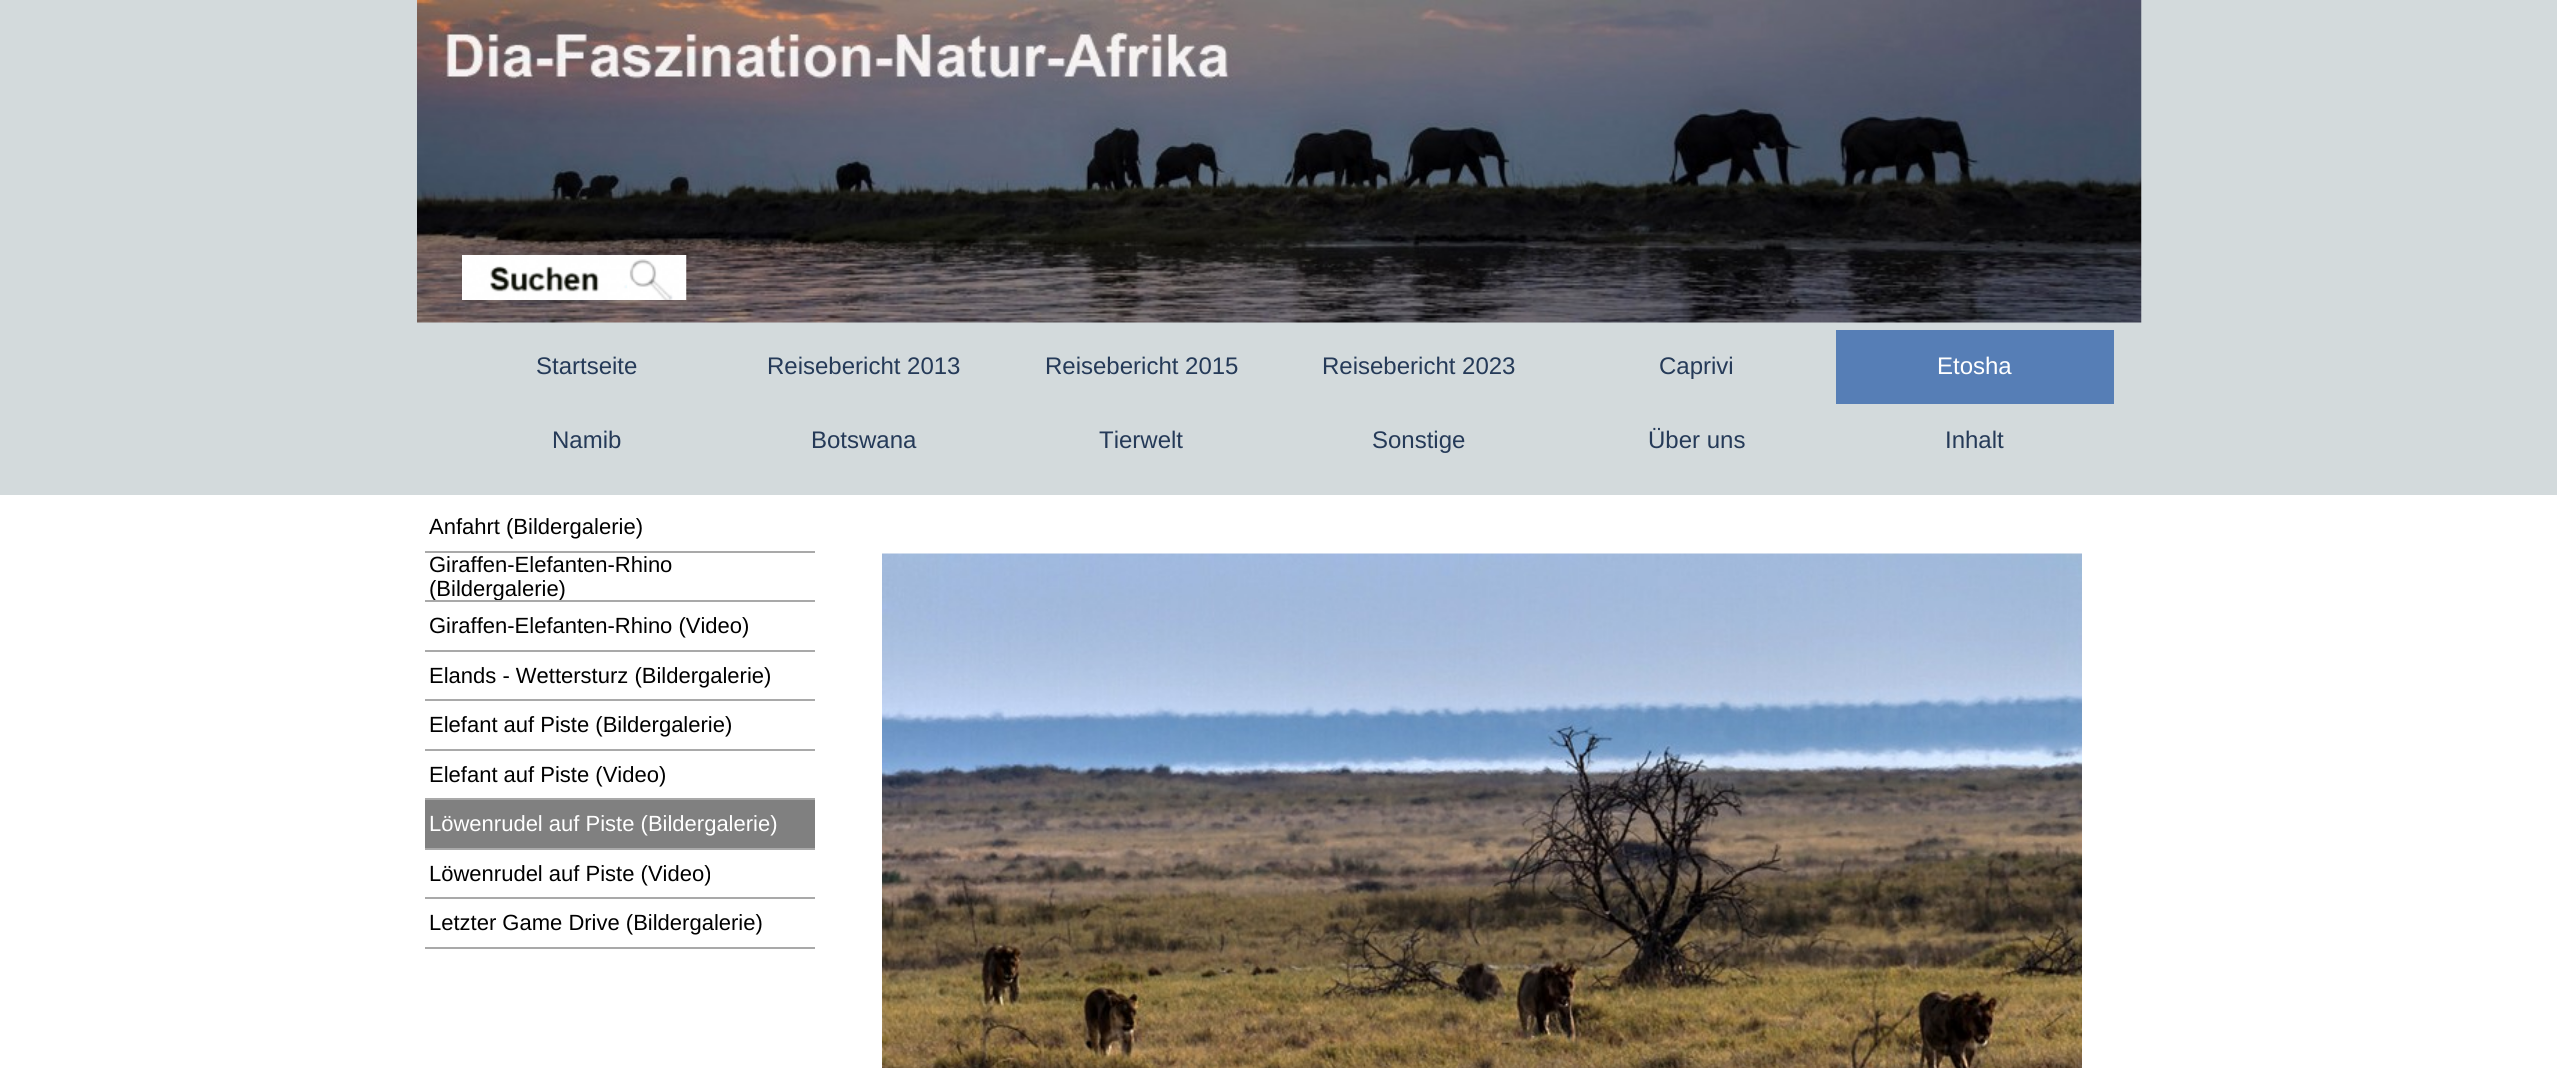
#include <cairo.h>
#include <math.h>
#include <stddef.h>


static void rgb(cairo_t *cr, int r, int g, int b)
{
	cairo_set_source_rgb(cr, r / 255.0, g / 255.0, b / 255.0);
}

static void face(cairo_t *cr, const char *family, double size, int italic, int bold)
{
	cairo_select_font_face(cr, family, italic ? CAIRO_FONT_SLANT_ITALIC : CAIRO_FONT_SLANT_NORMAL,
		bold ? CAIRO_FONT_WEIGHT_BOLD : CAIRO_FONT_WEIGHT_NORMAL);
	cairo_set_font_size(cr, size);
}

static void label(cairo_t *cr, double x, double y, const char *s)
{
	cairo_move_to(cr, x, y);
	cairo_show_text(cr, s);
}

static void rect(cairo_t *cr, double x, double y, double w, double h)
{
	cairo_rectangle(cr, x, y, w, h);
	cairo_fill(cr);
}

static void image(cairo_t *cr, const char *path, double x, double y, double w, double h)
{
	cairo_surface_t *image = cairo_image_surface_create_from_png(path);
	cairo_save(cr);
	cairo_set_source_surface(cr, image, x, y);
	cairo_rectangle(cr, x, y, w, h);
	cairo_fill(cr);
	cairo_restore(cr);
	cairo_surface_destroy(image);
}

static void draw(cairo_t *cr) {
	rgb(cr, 255, 255, 255);
	cairo_paint(cr);
	rgb(cr, 211, 218, 220);
	rect(cr, 0, 0, 2557, 495);
	image(cr, "image0.png", 417, 0, 1725, 323);
	image(cr, "image1.png", 462, 255, 225, 45);
	face(cr, "Liberation Sans", 24, 0, 0);
	rgb(cr, 37, 58, 88);
	label(cr, 536, 374, "Startseite");
	label(cr, 767, 374, "Reisebericht 2013");
	label(cr, 1045, 374, "Reisebericht 2015");
	label(cr, 1322, 374, "Reisebericht 2023");
	label(cr, 1659, 374, "Caprivi");
	rgb(cr, 86, 126, 182);
	rect(cr, 1836, 330, 278, 74);
	rgb(cr, 255, 255, 255);
	label(cr, 1937, 374, "Etosha");
	rgb(cr, 37, 58, 88);
	label(cr, 552, 448, "Namib");
	label(cr, 811, 448, "Botswana");
	label(cr, 1099, 448, "Tierwelt");
	label(cr, 1372, 448, "Sonstige");
	label(cr, 1648, 448, "Über uns");
	label(cr, 1945, 448, "Inhalt");
	rgb(cr, 169, 169, 169);
	rect(cr, 425, 551, 390, 2);
	face(cr, "Liberation Sans", 22, 0, 0);
	rgb(cr, 0, 0, 0);
	label(cr, 429, 534, "Anfahrt (Bildergalerie)");
	rgb(cr, 169, 169, 169);
	rect(cr, 425, 600, 390, 2);
	rgb(cr, 0, 0, 0);
	label(cr, 429, 572, "Giraffen-Elefanten-Rhino");
	cairo_save(cr);
	cairo_rectangle(cr, 425, 552, 390, 48);
	cairo_clip(cr);
	label(cr, 429, 596, "(Bildergalerie)");
	cairo_restore(cr);
	rgb(cr, 169, 169, 169);
	rect(cr, 425, 650, 390, 2);
	rgb(cr, 0, 0, 0);
	label(cr, 429, 633, "Giraffen-Elefanten-Rhino (Video)");
	rgb(cr, 169, 169, 169);
	rect(cr, 425, 699, 390, 2);
	rgb(cr, 0, 0, 0);
	label(cr, 429, 683, "Elands - Wettersturz (Bildergalerie)");
	rgb(cr, 169, 169, 169);
	rect(cr, 425, 749, 390, 2);
	rgb(cr, 0, 0, 0);
	label(cr, 429, 732, "Elefant auf Piste (Bildergalerie)");
	rgb(cr, 169, 169, 169);
	rect(cr, 425, 798, 390, 2);
	rgb(cr, 0, 0, 0);
	label(cr, 429, 782, "Elefant auf Piste (Video)");
	rgb(cr, 128, 128, 128);
	rect(cr, 425, 800, 390, 48);
	rgb(cr, 169, 169, 169);
	rect(cr, 425, 848, 390, 2);
	rgb(cr, 255, 255, 255);
	label(cr, 429, 831, "Löwenrudel auf Piste (Bildergalerie)");
	rgb(cr, 169, 169, 169);
	rect(cr, 425, 897, 390, 2);
	rgb(cr, 0, 0, 0);
	label(cr, 429, 881, "Löwenrudel auf Piste (Video)");
	rgb(cr, 169, 169, 169);
	rect(cr, 425, 947, 390, 2);
	rgb(cr, 0, 0, 0);
	label(cr, 429, 930, "Letzter Game Drive (Bildergalerie)");
	image(cr, "image2.png", 882, 553, 1200, 515);
}

int main(void) {
	cairo_surface_t *surface = cairo_image_surface_create(CAIRO_FORMAT_RGB24, 2557, 1068);
	cairo_t *cr = cairo_create(surface);
	cairo_font_options_t *options = cairo_font_options_create();
	cairo_font_options_set_hint_metrics(options, CAIRO_HINT_METRICS_OFF);
	cairo_font_options_set_hint_style(options, CAIRO_HINT_STYLE_NONE);
	cairo_set_font_options(cr, options);
	cairo_set_miter_limit(cr, 4);
	draw(cr);
	cairo_surface_write_to_png(surface, "render.png");
	cairo_font_options_destroy(options);
	cairo_destroy(cr);
	cairo_surface_destroy(surface);
	return 0;
}
